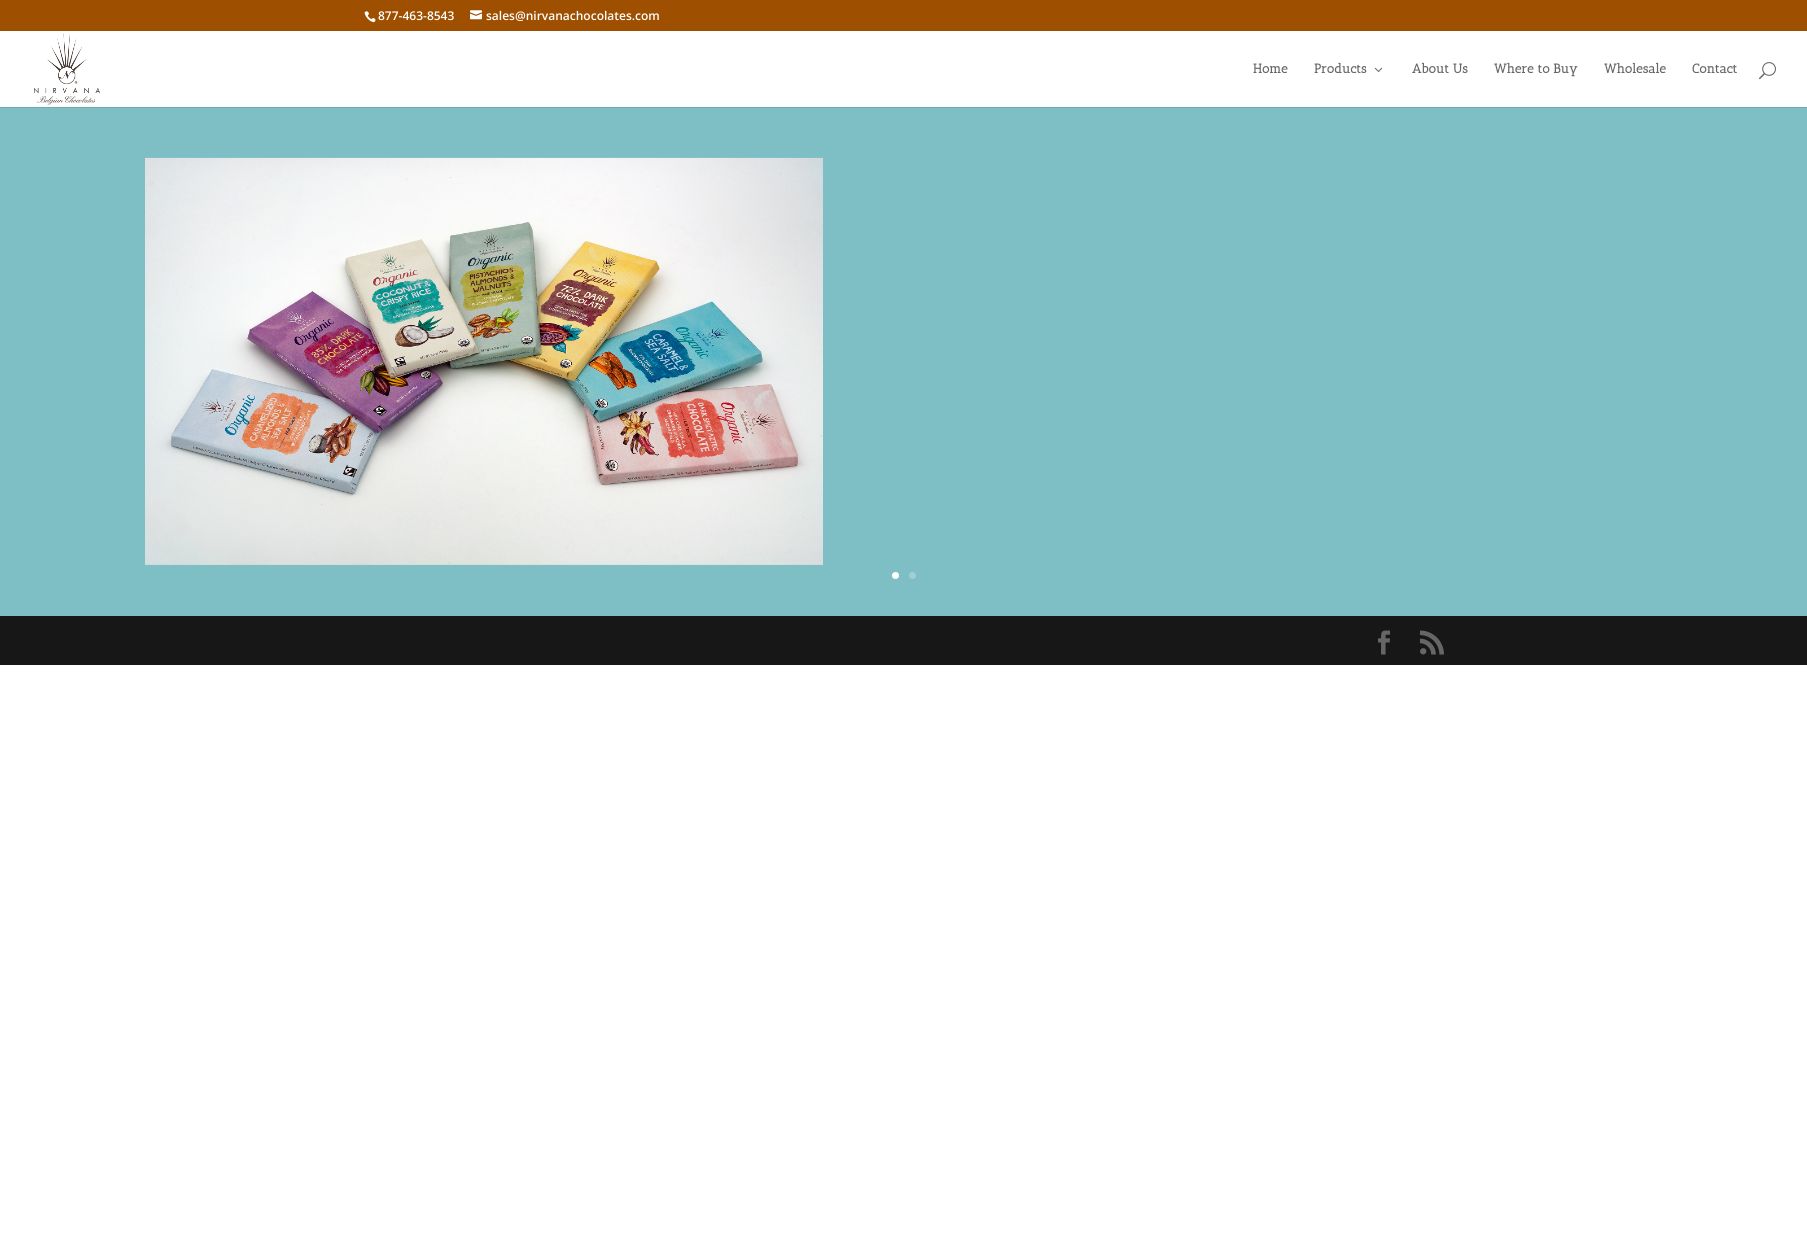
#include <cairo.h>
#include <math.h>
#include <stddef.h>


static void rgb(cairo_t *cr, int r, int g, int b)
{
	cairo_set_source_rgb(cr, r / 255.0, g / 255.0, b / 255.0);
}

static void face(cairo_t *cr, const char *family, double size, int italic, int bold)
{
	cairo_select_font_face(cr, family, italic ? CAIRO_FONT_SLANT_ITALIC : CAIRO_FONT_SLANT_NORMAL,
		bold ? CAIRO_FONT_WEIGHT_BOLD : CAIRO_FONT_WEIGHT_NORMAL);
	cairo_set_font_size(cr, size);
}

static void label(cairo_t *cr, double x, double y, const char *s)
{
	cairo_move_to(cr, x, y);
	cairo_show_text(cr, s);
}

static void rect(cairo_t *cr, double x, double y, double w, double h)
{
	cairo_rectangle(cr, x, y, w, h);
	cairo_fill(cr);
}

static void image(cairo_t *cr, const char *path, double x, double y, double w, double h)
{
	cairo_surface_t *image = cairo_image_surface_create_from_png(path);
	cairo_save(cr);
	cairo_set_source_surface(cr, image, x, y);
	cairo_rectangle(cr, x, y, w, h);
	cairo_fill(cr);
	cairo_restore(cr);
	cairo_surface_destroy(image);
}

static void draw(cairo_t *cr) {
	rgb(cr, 255, 255, 255);
	cairo_paint(cr);
	rgb(cr, 158, 79, 0);
	rect(cr, 0, 0, 1807, 31);
	image(cr, "image0.png", 364, 11, 12, 12);
	face(cr, "Open Sans SemiBold", 12, 0, 0);
	rgb(cr, 255, 255, 255);
	label(cr, 378, 20, "877-463-8543");
	image(cr, "image1.png", 470, 10, 12, 10);
	label(cr, 486, 20, "sales@nirvanachocolates.com");
	rgb(cr, 113, 171, 177);
	rect(cr, 0, 107, 1807, 1);
	image(cr, "image2.png", 34, 33, 66, 72);
	face(cr, "Antic Slab", 13, 0, 1);
	rgb(cr, 102, 102, 102);
	label(cr, 1253, 73, "Home");
	label(cr, 1314, 73, "Products");
	image(cr, "image3.png", 1374, 67, 9, 5);
	label(cr, 1412, 73, "About Us");
	label(cr, 1494, 73, "Where to Buy");
	label(cr, 1604, 73, "Wholesale");
	label(cr, 1692, 73, "Contact");
	image(cr, "image4.png", 1759, 62, 17, 18);
	rgb(cr, 126, 190, 197);
	rect(cr, 0, 108, 1807, 508);
	image(cr, "image5.png", 145, 157, 678, 408);
	rgb(cr, 255, 255, 255);
	cairo_arc(cr, 895.5, 575.5, 3.5, 0, 2 * M_PI);
	cairo_fill(cr);
	rgb(cr, 159, 207, 212);
	cairo_arc(cr, 912.5, 575.5, 3.5, 0, 2 * M_PI);
	cairo_fill(cr);
	rgb(cr, 23, 23, 23);
	rect(cr, 0, 616, 1807, 49);
	image(cr, "image6.png", 1378, 630, 12, 25);
	image(cr, "image7.png", 1420, 630, 24, 25);
}

int main(void) {
	cairo_surface_t *surface = cairo_image_surface_create(CAIRO_FORMAT_RGB24, 1807, 1239);
	cairo_t *cr = cairo_create(surface);
	cairo_font_options_t *options = cairo_font_options_create();
	cairo_font_options_set_hint_metrics(options, CAIRO_HINT_METRICS_OFF);
	cairo_font_options_set_hint_style(options, CAIRO_HINT_STYLE_NONE);
	cairo_set_font_options(cr, options);
	cairo_set_miter_limit(cr, 4);
	draw(cr);
	cairo_surface_write_to_png(surface, "render.png");
	cairo_font_options_destroy(options);
	cairo_destroy(cr);
	cairo_surface_destroy(surface);
	return 0;
}
